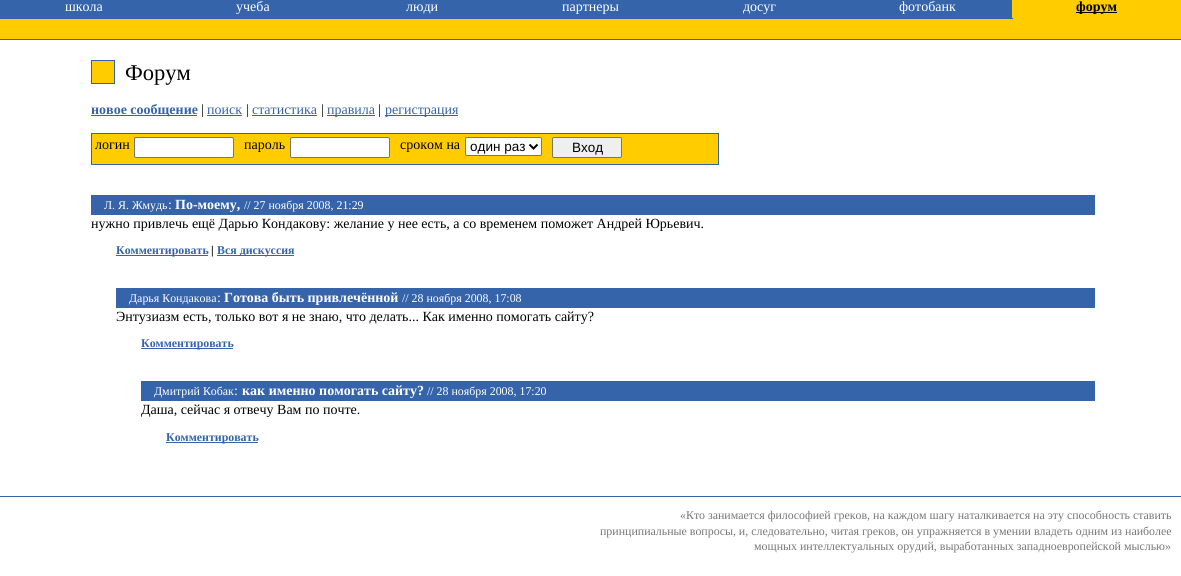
#include <cairo.h>
#include <math.h>
#include <stddef.h>


static void rgb(cairo_t *cr, int r, int g, int b)
{
	cairo_set_source_rgb(cr, r / 255.0, g / 255.0, b / 255.0);
}

static void face(cairo_t *cr, const char *family, double size, int italic, int bold)
{
	cairo_select_font_face(cr, family, italic ? CAIRO_FONT_SLANT_ITALIC : CAIRO_FONT_SLANT_NORMAL,
		bold ? CAIRO_FONT_WEIGHT_BOLD : CAIRO_FONT_WEIGHT_NORMAL);
	cairo_set_font_size(cr, size);
}

static void label(cairo_t *cr, double x, double y, const char *s)
{
	cairo_move_to(cr, x, y);
	cairo_show_text(cr, s);
}

static void rect(cairo_t *cr, double x, double y, double w, double h)
{
	cairo_rectangle(cr, x, y, w, h);
	cairo_fill(cr);
}

static void rrect(cairo_t *cr, double x, double y, double w, double h, double r)
{
	cairo_new_sub_path(cr);
	cairo_arc(cr, x + w - r, y + h - r, r, 0, M_PI / 2);
	cairo_arc(cr, x + r, y + h - r, r, M_PI / 2, M_PI);
	cairo_arc(cr, x + r, y + r, r, M_PI, 1.5 * M_PI);
	cairo_arc(cr, x + w - r, y + r, r, 1.5 * M_PI, 2 * M_PI);
	cairo_close_path(cr);
}

static void draw(cairo_t *cr) {
	rgb(cr, 255, 255, 255);
	cairo_paint(cr);
	rgb(cr, 53, 100, 170);
	rect(cr, 0, 39, 1181, 1);
	rect(cr, 0, 0, 844, 19);
	face(cr, "Liberation Serif", 14, 0, 0);
	rgb(cr, 255, 255, 255);
	label(cr, 65, 11, "школа");
	label(cr, 236, 11, "учеба");
	label(cr, 406, 11, "люди");
	label(cr, 562, 11, "партнеры");
	label(cr, 743, 11, "досуг");
	rgb(cr, 53, 100, 170);
	rect(cr, 844, 0, 168, 18);
	rgb(cr, 255, 204, 0);
	rect(cr, 1012, 0, 169, 19);
	rgb(cr, 53, 100, 170);
	rect(cr, 843, 18, 170, 1);
	rgb(cr, 255, 255, 255);
	label(cr, 899, 11, "фотобанк");
	rgb(cr, 0, 0, 0);
	rect(cr, 1076, 12, 41, 1);
	face(cr, "Liberation Serif", 14, 0, 1);
	label(cr, 1076, 11, "форум");
	rgb(cr, 255, 204, 0);
	rect(cr, 0, 19, 1181, 20);
	cairo_rectangle(cr, 91.5, 60.5, 23, 23);
	cairo_fill_preserve(cr);
	rgb(cr, 53, 100, 170);
	cairo_set_line_width(cr, 1);
	cairo_stroke(cr);
	face(cr, "Liberation Serif", 22.5, 0, 0);
	rgb(cr, 0, 0, 0);
	label(cr, 125, 80, "Форум");
	rgb(cr, 53, 100, 170);
	rect(cr, 91, 115, 106, 1);
	face(cr, "Liberation Serif", 14, 0, 1);
	label(cr, 91, 114, "новое сообщение");
	face(cr, "Liberation Serif", 14, 0, 0);
	rgb(cr, 0, 0, 0);
	label(cr, 201, 114, "|");
	rgb(cr, 53, 100, 170);
	label(cr, 207, 114, "поиск");
	rect(cr, 207, 115, 35, 1);
	rgb(cr, 0, 0, 0);
	label(cr, 246, 114, "|");
	rgb(cr, 53, 100, 170);
	label(cr, 252, 114, "статистика");
	rect(cr, 252, 115, 65, 1);
	rgb(cr, 0, 0, 0);
	label(cr, 321, 114, "|");
	rgb(cr, 53, 100, 170);
	rect(cr, 327, 115, 48, 1);
	label(cr, 327, 114, "правила");
	rgb(cr, 0, 0, 0);
	label(cr, 378, 114, "|");
	rgb(cr, 53, 100, 170);
	rect(cr, 385, 115, 73, 1);
	label(cr, 385, 114, "регистрация");
	rgb(cr, 255, 204, 0);
	cairo_rectangle(cr, 91.5, 133.5, 627, 31);
	cairo_fill_preserve(cr);
	rgb(cr, 53, 100, 170);
	cairo_stroke(cr);
	rgb(cr, 0, 0, 0);
	label(cr, 95, 149, "логин");
	rgb(cr, 255, 255, 255);
	rrect(cr, 134.5, 137.5, 99, 20, 1.5);
	cairo_fill_preserve(cr);
	rgb(cr, 118, 118, 118);
	cairo_stroke(cr);
	rgb(cr, 0, 0, 0);
	label(cr, 244, 149, "пароль");
	rgb(cr, 255, 255, 255);
	rrect(cr, 290.5, 137.5, 99, 20, 1.5);
	cairo_fill_preserve(cr);
	rgb(cr, 118, 118, 118);
	cairo_stroke(cr);
	rgb(cr, 0, 0, 0);
	label(cr, 400, 149, "сроком на");
	rgb(cr, 255, 255, 255);
	rrect(cr, 465.5, 137.5, 76, 18, 1.5);
	cairo_fill_preserve(cr);
	rgb(cr, 118, 118, 118);
	cairo_stroke(cr);
	cairo_new_path(cr);
	cairo_move_to(cr, 529.5, 144.5);
	cairo_line_to(cr, 533.5, 148.5);
	cairo_line_to(cr, 537.5, 144.5);
	rgb(cr, 0, 0, 0);
	cairo_set_line_width(cr, 2);
	cairo_stroke(cr);
	face(cr, "Liberation Sans", 13.5, 0, 0);
	label(cr, 470, 151, "один раз");
	rgb(cr, 239, 239, 239);
	rrect(cr, 552.5, 137.5, 69, 20, 1.5);
	cairo_fill_preserve(cr);
	rgb(cr, 118, 118, 118);
	cairo_set_line_width(cr, 1);
	cairo_stroke(cr);
	rgb(cr, 0, 0, 0);
	label(cr, 572, 152, "Вход");
	rgb(cr, 53, 100, 170);
	rect(cr, 91, 195, 1004, 20);
	face(cr, "Liberation Serif", 11.9, 0, 0);
	rgb(cr, 255, 255, 255);
	label(cr, 104, 209, "Л. Я. Жмудь");
	face(cr, "Liberation Serif", 14, 0, 0);
	label(cr, 168, 209, ":");
	face(cr, "Liberation Serif", 14, 0, 1);
	label(cr, 175, 209, "По-моему,");
	face(cr, "Liberation Serif", 11.9, 0, 0);
	label(cr, 244, 209, "// 27 ноября 2008, 21:29");
	face(cr, "Liberation Serif", 14, 0, 0);
	rgb(cr, 0, 0, 0);
	label(cr, 91, 228, "нужно привлечь ещё Дарью Кондакову: желание у нее есть, а со временем поможет Андрей Юрьевич.");
	rgb(cr, 53, 100, 170);
	rect(cr, 116, 255, 92, 1);
	face(cr, "Liberation Serif", 11.9, 0, 1);
	label(cr, 116, 254, "Комментировать");
	rgb(cr, 0, 0, 0);
	label(cr, 211, 254, "|");
	rgb(cr, 53, 100, 170);
	rect(cr, 217, 255, 77, 1);
	label(cr, 217, 254, "Вся дискуссия");
	rect(cr, 116, 288, 979, 20);
	face(cr, "Liberation Serif", 11.9, 0, 0);
	rgb(cr, 255, 255, 255);
	label(cr, 129, 302, "Дарья Кондакова");
	face(cr, "Liberation Serif", 14, 0, 0);
	label(cr, 217, 302, ":");
	face(cr, "Liberation Serif", 14, 0, 1);
	label(cr, 224, 302, "Готова быть привлечённой");
	face(cr, "Liberation Serif", 11.9, 0, 0);
	label(cr, 402, 302, "// 28 ноября 2008, 17:08");
	face(cr, "Liberation Serif", 14, 0, 0);
	rgb(cr, 0, 0, 0);
	label(cr, 116, 321, "Энтузиазм есть, только вот я не знаю, что делать... Как именно помогать сайту?");
	rgb(cr, 53, 100, 170);
	rect(cr, 141, 348, 92, 1);
	face(cr, "Liberation Serif", 11.9, 0, 1);
	label(cr, 141, 347, "Комментировать");
	rect(cr, 141, 381, 954, 20);
	face(cr, "Liberation Serif", 11.9, 0, 0);
	rgb(cr, 255, 255, 255);
	label(cr, 154, 395, "Дмитрий Кобак");
	face(cr, "Liberation Serif", 14, 0, 0);
	label(cr, 234, 395, ":");
	face(cr, "Liberation Serif", 14, 0, 1);
	label(cr, 242, 395, "как именно помогать сайту?");
	face(cr, "Liberation Serif", 11.9, 0, 0);
	label(cr, 427, 395, "// 28 ноября 2008, 17:20");
	face(cr, "Liberation Serif", 14, 0, 0);
	rgb(cr, 0, 0, 0);
	label(cr, 141, 414, "Даша, сейчас я отвечу Вам по почте.");
	rgb(cr, 53, 100, 170);
	rect(cr, 166, 442, 92, 1);
	face(cr, "Liberation Serif", 11.9, 0, 1);
	label(cr, 166, 441, "Комментировать");
	rect(cr, 0, 496, 1181, 1);
	face(cr, "Liberation Serif", 11.9, 0, 0);
	rgb(cr, 119, 119, 119);
	label(cr, 680, 519, "«Кто занимается философией греков, на каждом шагу наталкивается на эту способность ставить");
	label(cr, 600, 535, "принципиальные вопросы, и, следовательно, читая греков, он упражняется в умении владеть одним из наиболее");
	label(cr, 754, 550, "мощных интеллектуальных орудий, выработанных западноевропейской мыслью»");
}

int main(void) {
	cairo_surface_t *surface = cairo_image_surface_create(CAIRO_FORMAT_RGB24, 1181, 576);
	cairo_t *cr = cairo_create(surface);
	cairo_font_options_t *options = cairo_font_options_create();
	cairo_font_options_set_hint_metrics(options, CAIRO_HINT_METRICS_OFF);
	cairo_font_options_set_hint_style(options, CAIRO_HINT_STYLE_NONE);
	cairo_set_font_options(cr, options);
	cairo_set_miter_limit(cr, 4);
	draw(cr);
	cairo_surface_write_to_png(surface, "render.png");
	cairo_font_options_destroy(options);
	cairo_destroy(cr);
	cairo_surface_destroy(surface);
	return 0;
}
